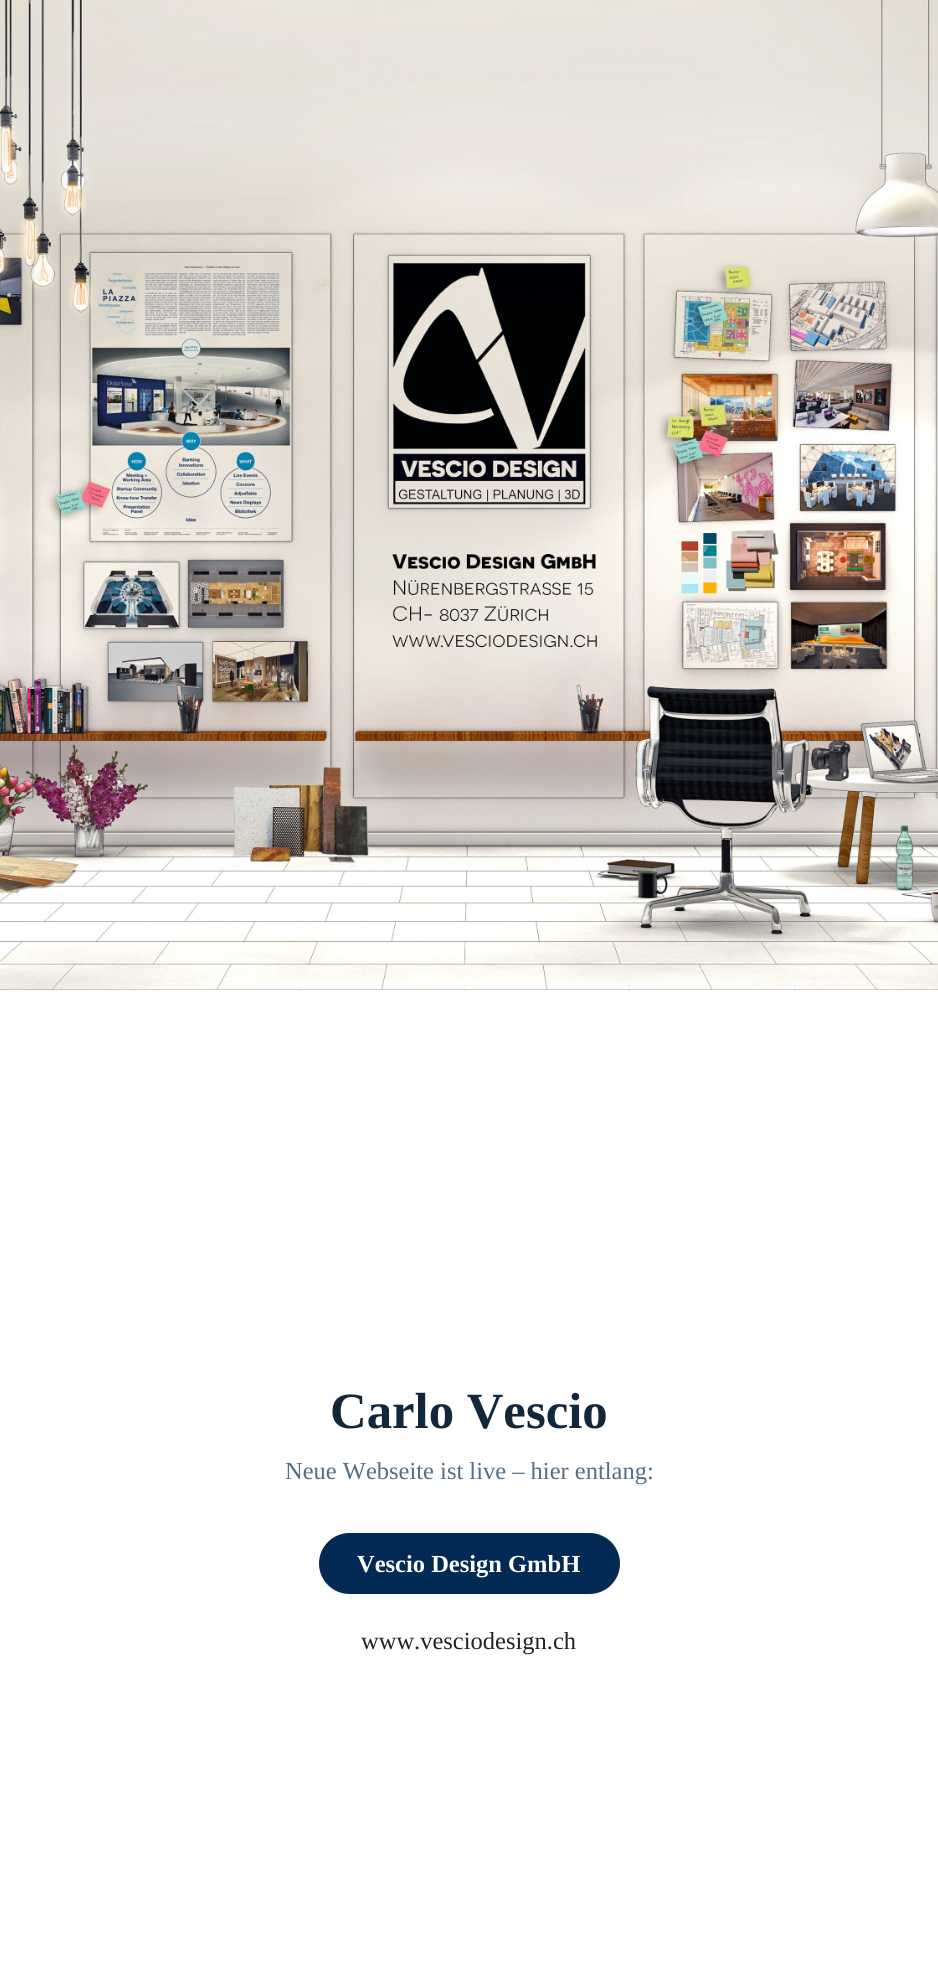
#include <cairo.h>
#include <math.h>
#include <stddef.h>


static void rgb(cairo_t *cr, int r, int g, int b)
{
	cairo_set_source_rgb(cr, r / 255.0, g / 255.0, b / 255.0);
}

static void face(cairo_t *cr, const char *family, double size, int italic, int bold)
{
	cairo_select_font_face(cr, family, italic ? CAIRO_FONT_SLANT_ITALIC : CAIRO_FONT_SLANT_NORMAL,
		bold ? CAIRO_FONT_WEIGHT_BOLD : CAIRO_FONT_WEIGHT_NORMAL);
	cairo_set_font_size(cr, size);
}

static void label(cairo_t *cr, double x, double y, const char *s)
{
	cairo_move_to(cr, x, y);
	cairo_show_text(cr, s);
}

static void rrect(cairo_t *cr, double x, double y, double w, double h, double r)
{
	cairo_new_sub_path(cr);
	cairo_arc(cr, x + w - r, y + h - r, r, 0, M_PI / 2);
	cairo_arc(cr, x + r, y + h - r, r, M_PI / 2, M_PI);
	cairo_arc(cr, x + r, y + r, r, M_PI, 1.5 * M_PI);
	cairo_arc(cr, x + w - r, y + r, r, 1.5 * M_PI, 2 * M_PI);
	cairo_close_path(cr);
}

static void image(cairo_t *cr, const char *path, double x, double y, double w, double h)
{
	cairo_surface_t *image = cairo_image_surface_create_from_png(path);
	cairo_save(cr);
	cairo_set_source_surface(cr, image, x, y);
	cairo_rectangle(cr, x, y, w, h);
	cairo_fill(cr);
	cairo_restore(cr);
	cairo_surface_destroy(image);
}

static void draw(cairo_t *cr) {
	rgb(cr, 255, 255, 255);
	cairo_paint(cr);
	image(cr, "image0.png", 0, 0, 938, 991);
	face(cr, "Liberation Serif", 50.75, 0, 1);
	rgb(cr, 19, 39, 58);
	label(cr, 330, 1428, "Carlo Vescio");
	face(cr, "Liberation Serif", 24.5, 0, 0);
	rgb(cr, 84, 110, 135);
	label(cr, 285, 1479, "Neue Webseite ist live – hier entlang:");
	rgb(cr, 2, 42, 85);
	rrect(cr, 319, 1533, 301, 61, 30.5);
	cairo_fill(cr);
	face(cr, "Liberation Serif", 24.5, 0, 1);
	rgb(cr, 255, 255, 255);
	label(cr, 357, 1572, "Vescio Design GmbH");
	face(cr, "Liberation Serif", 24.5, 0, 0);
	rgb(cr, 34, 34, 34);
	label(cr, 361, 1649, "www.vesciodesign.ch");
}

int main(void) {
	cairo_surface_t *surface = cairo_image_surface_create(CAIRO_FORMAT_RGB24, 938, 1979);
	cairo_t *cr = cairo_create(surface);
	cairo_font_options_t *options = cairo_font_options_create();
	cairo_font_options_set_hint_metrics(options, CAIRO_HINT_METRICS_OFF);
	cairo_font_options_set_hint_style(options, CAIRO_HINT_STYLE_NONE);
	cairo_set_font_options(cr, options);
	cairo_set_miter_limit(cr, 4);
	draw(cr);
	cairo_surface_write_to_png(surface, "render.png");
	cairo_font_options_destroy(options);
	cairo_destroy(cr);
	cairo_surface_destroy(surface);
	return 0;
}
